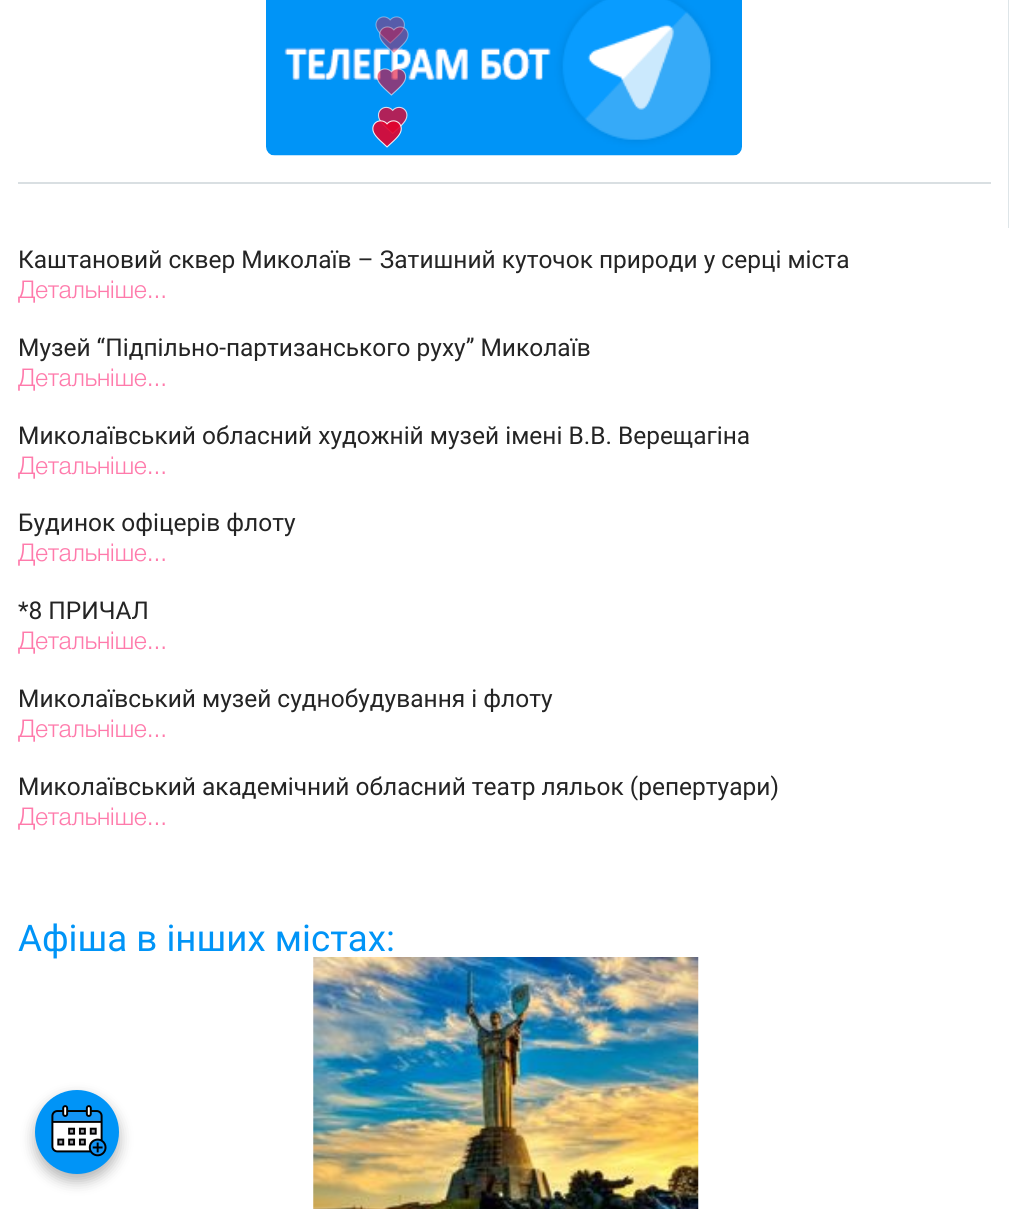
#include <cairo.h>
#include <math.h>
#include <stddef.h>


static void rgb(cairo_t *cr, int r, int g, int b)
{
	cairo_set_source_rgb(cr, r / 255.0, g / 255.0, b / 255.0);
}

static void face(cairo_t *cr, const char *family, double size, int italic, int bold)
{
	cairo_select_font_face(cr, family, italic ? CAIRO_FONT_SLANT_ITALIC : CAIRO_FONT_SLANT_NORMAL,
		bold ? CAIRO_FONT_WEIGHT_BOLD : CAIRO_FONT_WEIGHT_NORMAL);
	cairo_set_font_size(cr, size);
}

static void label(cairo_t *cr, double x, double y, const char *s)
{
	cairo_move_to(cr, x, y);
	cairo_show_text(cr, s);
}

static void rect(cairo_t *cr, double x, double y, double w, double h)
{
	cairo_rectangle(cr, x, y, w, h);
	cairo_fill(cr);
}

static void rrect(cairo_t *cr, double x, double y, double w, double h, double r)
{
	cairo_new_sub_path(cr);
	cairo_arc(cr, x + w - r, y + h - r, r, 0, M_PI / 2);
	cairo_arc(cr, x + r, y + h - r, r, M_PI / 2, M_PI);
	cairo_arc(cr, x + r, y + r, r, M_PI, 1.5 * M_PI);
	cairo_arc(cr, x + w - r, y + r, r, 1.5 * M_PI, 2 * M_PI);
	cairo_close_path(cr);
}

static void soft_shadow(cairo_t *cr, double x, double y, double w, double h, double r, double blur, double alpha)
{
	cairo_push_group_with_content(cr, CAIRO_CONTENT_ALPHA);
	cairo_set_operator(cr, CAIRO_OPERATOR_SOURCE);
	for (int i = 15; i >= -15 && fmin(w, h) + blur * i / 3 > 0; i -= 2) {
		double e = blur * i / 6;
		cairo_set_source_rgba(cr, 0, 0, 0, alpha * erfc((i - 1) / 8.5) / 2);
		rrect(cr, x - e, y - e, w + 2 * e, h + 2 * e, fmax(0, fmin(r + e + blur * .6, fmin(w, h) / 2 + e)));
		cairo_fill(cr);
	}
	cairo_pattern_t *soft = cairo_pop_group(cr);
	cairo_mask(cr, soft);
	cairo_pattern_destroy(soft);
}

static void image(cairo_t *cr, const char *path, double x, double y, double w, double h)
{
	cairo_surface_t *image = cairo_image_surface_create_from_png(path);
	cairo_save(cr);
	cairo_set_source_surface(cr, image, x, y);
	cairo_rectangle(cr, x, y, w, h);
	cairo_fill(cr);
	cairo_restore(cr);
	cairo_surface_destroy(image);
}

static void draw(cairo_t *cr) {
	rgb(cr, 255, 255, 255);
	cairo_paint(cr);
	rgb(cr, 222, 229, 232);
	rect(cr, 1008, 0, 1, 228);
	image(cr, "image0.png", 266, 0, 476, 156);
	image(cr, "image1.png", 372, 16, 37, 132);
	rgb(cr, 217, 223, 226);
	rect(cr, 18, 182, 973, 2);
	face(cr, "Roboto", 24.5, 0, 0);
	rgb(cr, 36, 36, 36);
	label(cr, 18, 268, "Каштановий сквер Миколаїв – Затишний куточок природи у серці міста");
	cairo_save(cr);
	cairo_rectangle(cr, 18, 245, 974, 61);
	cairo_clip(cr);
	face(cr, "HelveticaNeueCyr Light", 24.5, 0, 0);
	rgb(cr, 255, 122, 171);
	label(cr, 18, 298, "Детальніше...");
	cairo_restore(cr);
	label(cr, 18, 356, "Музей “Підпільно-партизанського руху” Миколаїв");
	cairo_save(cr);
	cairo_rectangle(cr, 18, 333, 974, 63);
	cairo_clip(cr);
	face(cr, "HelveticaNeueCyr Light", 24.5, 0, 0);
	rgb(cr, 255, 122, 171);
	label(cr, 18, 386, "Детальніше...");
	cairo_restore(cr);
	label(cr, 18, 444, "Миколаївський обласний художній музей імені В.В. Верещагіна");
	cairo_save(cr);
	cairo_rectangle(cr, 18, 422, 974, 61);
	cairo_clip(cr);
	face(cr, "HelveticaNeueCyr Light", 24.5, 0, 0);
	rgb(cr, 255, 122, 171);
	label(cr, 18, 474, "Детальніше...");
	cairo_restore(cr);
	label(cr, 18, 531, "Будинок офіцерів флоту");
	cairo_save(cr);
	cairo_rectangle(cr, 18, 509, 974, 62);
	cairo_clip(cr);
	face(cr, "HelveticaNeueCyr Light", 24.5, 0, 0);
	rgb(cr, 255, 122, 171);
	label(cr, 18, 561, "Детальніше...");
	cairo_restore(cr);
	label(cr, 18, 619, "*8 ПРИЧАЛ");
	cairo_save(cr);
	cairo_rectangle(cr, 18, 597, 974, 61);
	cairo_clip(cr);
	face(cr, "HelveticaNeueCyr Light", 24.5, 0, 0);
	rgb(cr, 255, 122, 171);
	label(cr, 18, 649, "Детальніше...");
	cairo_restore(cr);
	label(cr, 18, 707, "Миколаївський музей суднобудування і флоту");
	cairo_save(cr);
	cairo_rectangle(cr, 18, 684, 974, 62);
	cairo_clip(cr);
	face(cr, "HelveticaNeueCyr Light", 24.5, 0, 0);
	rgb(cr, 255, 122, 171);
	label(cr, 18, 737, "Детальніше...");
	cairo_restore(cr);
	label(cr, 18, 795, "Миколаївський академічний обласний театр ляльок (репертуари)");
	cairo_save(cr);
	cairo_rectangle(cr, 18, 772, 974, 61);
	cairo_clip(cr);
	face(cr, "HelveticaNeueCyr Light", 24.5, 0, 0);
	rgb(cr, 255, 122, 171);
	label(cr, 18, 825, "Детальніше...");
	cairo_restore(cr);
	face(cr, "Roboto", 36.75, 0, 0);
	rgb(cr, 0, 148, 247);
	label(cr, 18, 951, "Афіша в інших містах:");
	image(cr, "image2.png", 313, 957, 386, 252);
	rgb(cr, 0, 0, 0);
	soft_shadow(cr, 35, 1097, 84, 84, 42, 7, 0.3);
	rgb(cr, 0, 148, 247);
	cairo_arc(cr, 77, 1132, 42, 0, 2 * M_PI);
	cairo_fill(cr);
	image(cr, "image3.png", 51, 1105, 56, 52);
}

int main(void) {
	cairo_surface_t *surface = cairo_image_surface_create(CAIRO_FORMAT_RGB24, 1009, 1209);
	cairo_t *cr = cairo_create(surface);
	cairo_font_options_t *options = cairo_font_options_create();
	cairo_font_options_set_hint_metrics(options, CAIRO_HINT_METRICS_OFF);
	cairo_font_options_set_hint_style(options, CAIRO_HINT_STYLE_NONE);
	cairo_set_font_options(cr, options);
	cairo_set_miter_limit(cr, 4);
	draw(cr);
	cairo_surface_write_to_png(surface, "render.png");
	cairo_font_options_destroy(options);
	cairo_destroy(cr);
	cairo_surface_destroy(surface);
	return 0;
}
